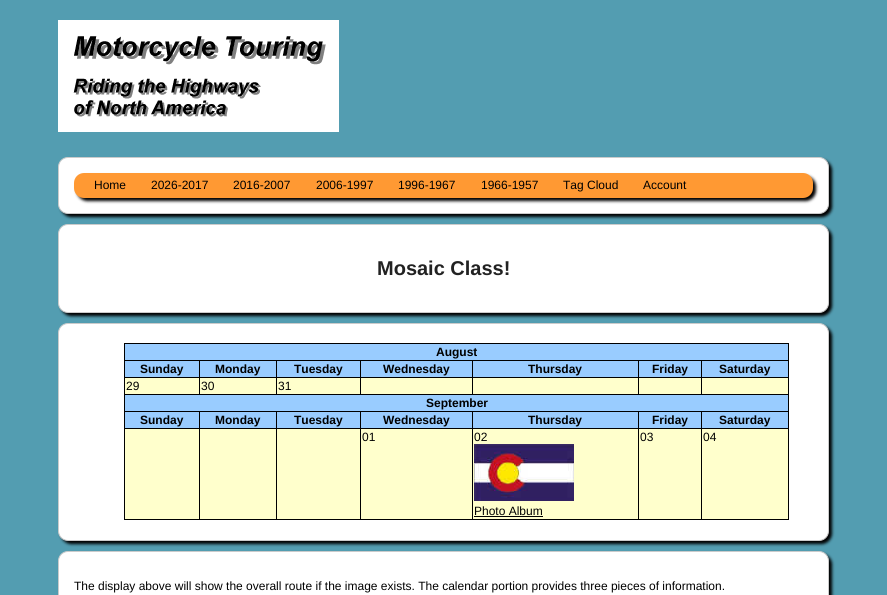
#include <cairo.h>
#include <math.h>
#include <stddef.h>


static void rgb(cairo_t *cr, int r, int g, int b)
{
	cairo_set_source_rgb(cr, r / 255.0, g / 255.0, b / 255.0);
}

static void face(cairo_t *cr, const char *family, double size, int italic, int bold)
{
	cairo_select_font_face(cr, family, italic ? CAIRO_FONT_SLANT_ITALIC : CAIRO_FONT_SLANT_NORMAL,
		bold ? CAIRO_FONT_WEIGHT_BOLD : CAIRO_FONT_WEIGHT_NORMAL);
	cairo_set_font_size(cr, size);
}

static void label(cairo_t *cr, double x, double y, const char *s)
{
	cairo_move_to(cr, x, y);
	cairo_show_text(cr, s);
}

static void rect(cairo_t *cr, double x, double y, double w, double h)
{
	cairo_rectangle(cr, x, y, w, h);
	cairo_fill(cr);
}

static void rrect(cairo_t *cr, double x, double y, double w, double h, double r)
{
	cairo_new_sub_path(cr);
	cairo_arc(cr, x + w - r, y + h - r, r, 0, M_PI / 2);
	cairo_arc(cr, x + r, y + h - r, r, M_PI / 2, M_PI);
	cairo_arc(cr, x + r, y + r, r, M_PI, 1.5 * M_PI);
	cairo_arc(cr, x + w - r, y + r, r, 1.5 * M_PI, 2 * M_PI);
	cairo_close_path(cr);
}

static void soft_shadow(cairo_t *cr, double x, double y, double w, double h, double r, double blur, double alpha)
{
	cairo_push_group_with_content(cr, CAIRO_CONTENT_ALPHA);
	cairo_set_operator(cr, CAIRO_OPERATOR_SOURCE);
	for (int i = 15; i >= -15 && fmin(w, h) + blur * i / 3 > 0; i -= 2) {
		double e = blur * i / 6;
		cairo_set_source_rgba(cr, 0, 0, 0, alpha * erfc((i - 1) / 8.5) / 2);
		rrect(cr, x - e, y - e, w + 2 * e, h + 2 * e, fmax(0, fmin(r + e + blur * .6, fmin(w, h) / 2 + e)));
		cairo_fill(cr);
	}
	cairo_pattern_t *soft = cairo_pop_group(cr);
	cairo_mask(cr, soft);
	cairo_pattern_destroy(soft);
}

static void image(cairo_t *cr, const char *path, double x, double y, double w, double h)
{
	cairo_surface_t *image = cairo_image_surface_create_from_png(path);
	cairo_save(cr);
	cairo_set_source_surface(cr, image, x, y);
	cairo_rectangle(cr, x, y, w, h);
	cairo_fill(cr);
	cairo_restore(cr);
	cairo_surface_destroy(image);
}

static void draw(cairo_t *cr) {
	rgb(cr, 83, 157, 177);
	cairo_paint(cr);
	image(cr, "image0.png", 58, 20, 281, 112);
	rgb(cr, 0, 0, 0);
	soft_shadow(cr, 61, 160, 771, 57, 10, 1.5, 1);
	rgb(cr, 255, 255, 255);
	rrect(cr, 58.5, 157.5, 770, 56, 9.5);
	cairo_fill_preserve(cr);
	rgb(cr, 203, 203, 203);
	cairo_set_line_width(cr, 1);
	cairo_stroke(cr);
	rgb(cr, 0, 0, 0);
	soft_shadow(cr, 77, 176, 739, 25, 10, 1.5, 1);
	rgb(cr, 255, 153, 51);
	rrect(cr, 74, 173, 739, 25, 10);
	cairo_fill(cr);
	face(cr, "Liberation Sans", 12, 0, 0);
	rgb(cr, 0, 0, 0);
	label(cr, 94, 189, "Home");
	label(cr, 151, 189, "2026-2017");
	label(cr, 233, 189, "2016-2007");
	label(cr, 316, 189, "2006-1997");
	label(cr, 398, 189, "1996-1967");
	label(cr, 481, 189, "1966-1957");
	label(cr, 563, 189, "Tag Cloud");
	label(cr, 643, 189, "Account");
	rgb(cr, 0, 0, 0);
	soft_shadow(cr, 61, 227, 771, 89, 10, 1.5, 1);
	rgb(cr, 255, 255, 255);
	rrect(cr, 58.5, 224.5, 770, 88, 9.5);
	cairo_fill_preserve(cr);
	rgb(cr, 203, 203, 203);
	cairo_stroke(cr);
	face(cr, "Liberation Sans", 20, 0, 1);
	rgb(cr, 34, 34, 34);
	label(cr, 377, 275, "Mosaic Class!");
	rgb(cr, 0, 0, 0);
	soft_shadow(cr, 61, 326, 771, 218, 10, 1.5, 1);
	rgb(cr, 255, 255, 255);
	rrect(cr, 58.5, 323.5, 770, 217, 9.5);
	cairo_fill_preserve(cr);
	rgb(cr, 203, 203, 203);
	cairo_stroke(cr);
	rgb(cr, 153, 204, 255);
	rect(cr, 125, 344, 663, 16);
	rgb(cr, 0, 0, 0);
	rect(cr, 124, 343, 665, 1);
	rect(cr, 701, 360, 88, 1);
	rect(cr, 701, 377, 88, 1);
	rect(cr, 124, 394, 665, 1);
	rect(cr, 701, 411, 88, 1);
	rect(cr, 701, 428, 88, 1);
	rect(cr, 788, 428, 1, 92);
	rect(cr, 788, 411, 1, 18);
	rect(cr, 788, 394, 1, 18);
	rect(cr, 788, 377, 1, 18);
	rect(cr, 788, 360, 1, 18);
	rect(cr, 788, 343, 1, 18);
	rgb(cr, 255, 255, 204);
	rect(cr, 125, 378, 663, 16);
	rgb(cr, 0, 0, 0);
	rect(cr, 701, 377, 1, 18);
	rect(cr, 638, 377, 64, 1);
	rect(cr, 701, 360, 1, 18);
	rect(cr, 638, 360, 64, 1);
	rect(cr, 638, 377, 1, 18);
	rect(cr, 472, 377, 167, 1);
	rect(cr, 638, 360, 1, 18);
	rect(cr, 472, 360, 167, 1);
	rect(cr, 472, 377, 1, 18);
	rect(cr, 360, 377, 113, 1);
	rect(cr, 472, 360, 1, 18);
	rect(cr, 360, 360, 113, 1);
	rect(cr, 360, 377, 1, 18);
	rect(cr, 276, 377, 85, 1);
	rect(cr, 360, 360, 1, 18);
	rect(cr, 276, 360, 85, 1);
	rect(cr, 276, 377, 1, 18);
	rect(cr, 199, 377, 78, 1);
	rect(cr, 276, 360, 1, 18);
	rect(cr, 199, 360, 78, 1);
	rect(cr, 199, 377, 1, 18);
	rect(cr, 124, 377, 76, 1);
	rect(cr, 199, 360, 1, 18);
	rect(cr, 124, 360, 76, 1);
	rgb(cr, 255, 255, 204);
	rect(cr, 125, 429, 663, 90);
	rgb(cr, 0, 0, 0);
	rect(cr, 701, 519, 88, 1);
	rect(cr, 701, 428, 1, 92);
	rect(cr, 638, 428, 64, 1);
	rect(cr, 701, 411, 1, 18);
	rect(cr, 638, 411, 64, 1);
	rect(cr, 638, 519, 64, 1);
	rect(cr, 638, 428, 1, 92);
	rect(cr, 472, 428, 167, 1);
	rect(cr, 638, 411, 1, 18);
	rect(cr, 472, 411, 167, 1);
	rect(cr, 472, 519, 167, 1);
	rect(cr, 472, 428, 1, 92);
	rect(cr, 360, 428, 113, 1);
	rect(cr, 472, 411, 1, 18);
	rect(cr, 360, 411, 113, 1);
	rect(cr, 360, 519, 113, 1);
	rect(cr, 360, 428, 1, 92);
	rect(cr, 276, 428, 85, 1);
	rect(cr, 360, 411, 1, 18);
	rect(cr, 276, 411, 85, 1);
	rect(cr, 276, 519, 85, 1);
	rect(cr, 276, 428, 1, 92);
	rect(cr, 199, 428, 78, 1);
	rect(cr, 276, 411, 1, 18);
	rect(cr, 199, 411, 78, 1);
	rect(cr, 199, 519, 78, 1);
	rect(cr, 199, 428, 1, 92);
	rect(cr, 124, 428, 76, 1);
	rect(cr, 199, 411, 1, 18);
	rect(cr, 124, 411, 76, 1);
	rect(cr, 124, 519, 76, 1);
	rect(cr, 124, 428, 1, 92);
	rect(cr, 124, 411, 1, 18);
	rect(cr, 124, 394, 1, 18);
	rect(cr, 124, 377, 1, 18);
	rect(cr, 124, 360, 1, 18);
	rect(cr, 124, 343, 1, 18);
	face(cr, "Liberation Sans", 12, 0, 1);
	label(cr, 436, 356, "August");
	rgb(cr, 153, 204, 255);
	rect(cr, 125, 361, 74, 16);
	rgb(cr, 0, 0, 0);
	label(cr, 140, 373, "Sunday");
	rgb(cr, 153, 204, 255);
	rect(cr, 200, 361, 76, 16);
	rgb(cr, 0, 0, 0);
	label(cr, 215, 373, "Monday");
	rgb(cr, 153, 204, 255);
	rect(cr, 277, 361, 83, 16);
	rgb(cr, 0, 0, 0);
	label(cr, 294, 373, "Tuesday");
	rgb(cr, 153, 204, 255);
	rect(cr, 361, 361, 111, 16);
	rgb(cr, 0, 0, 0);
	label(cr, 383, 373, "Wednesday");
	rgb(cr, 153, 204, 255);
	rect(cr, 473, 361, 165, 16);
	rgb(cr, 0, 0, 0);
	label(cr, 528, 373, "Thursday");
	rgb(cr, 153, 204, 255);
	rect(cr, 639, 361, 62, 16);
	rgb(cr, 0, 0, 0);
	label(cr, 652, 373, "Friday");
	rgb(cr, 153, 204, 255);
	rect(cr, 702, 361, 86, 16);
	rgb(cr, 0, 0, 0);
	label(cr, 719, 373, "Saturday");
	face(cr, "Liberation Sans", 12, 0, 0);
	label(cr, 126, 390, "29");
	label(cr, 201, 390, "30");
	label(cr, 278, 390, "31");
	rgb(cr, 153, 204, 255);
	rect(cr, 125, 395, 663, 16);
	face(cr, "Liberation Sans", 12, 0, 1);
	rgb(cr, 0, 0, 0);
	label(cr, 426, 407, "September");
	rgb(cr, 153, 204, 255);
	rect(cr, 125, 412, 74, 16);
	rgb(cr, 0, 0, 0);
	label(cr, 140, 424, "Sunday");
	rgb(cr, 153, 204, 255);
	rect(cr, 200, 412, 76, 16);
	rgb(cr, 0, 0, 0);
	label(cr, 215, 424, "Monday");
	rgb(cr, 153, 204, 255);
	rect(cr, 277, 412, 83, 16);
	rgb(cr, 0, 0, 0);
	label(cr, 294, 424, "Tuesday");
	rgb(cr, 153, 204, 255);
	rect(cr, 361, 412, 111, 16);
	rgb(cr, 0, 0, 0);
	label(cr, 383, 424, "Wednesday");
	rgb(cr, 153, 204, 255);
	rect(cr, 473, 412, 165, 16);
	rgb(cr, 0, 0, 0);
	label(cr, 528, 424, "Thursday");
	rgb(cr, 153, 204, 255);
	rect(cr, 639, 412, 62, 16);
	rgb(cr, 0, 0, 0);
	label(cr, 652, 424, "Friday");
	rgb(cr, 153, 204, 255);
	rect(cr, 702, 412, 86, 16);
	rgb(cr, 0, 0, 0);
	label(cr, 719, 424, "Saturday");
	face(cr, "Liberation Sans", 12, 0, 0);
	label(cr, 362, 441, "01");
	label(cr, 474, 441, "02");
	image(cr, "image1.png", 474, 444, 100, 57);
	label(cr, 474, 515, "Photo Album");
	rect(cr, 474, 516, 69, 1);
	label(cr, 640, 441, "03");
	label(cr, 703, 441, "04");
	rgb(cr, 0, 0, 0);
	soft_shadow(cr, 61, 554, 771, 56, 10, 1.5, 1);
	rgb(cr, 255, 255, 255);
	rrect(cr, 58.5, 551.5, 770, 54, 9.5);
	cairo_fill_preserve(cr);
	rgb(cr, 203, 203, 203);
	cairo_stroke(cr);
	rgb(cr, 0, 0, 0);
	label(cr, 74, 590, "The display above will show the overall route if the image exists. The calendar portion provides three pieces of information.");
}

int main(void) {
	cairo_surface_t *surface = cairo_image_surface_create(CAIRO_FORMAT_RGB24, 887, 595);
	cairo_t *cr = cairo_create(surface);
	cairo_font_options_t *options = cairo_font_options_create();
	cairo_font_options_set_hint_metrics(options, CAIRO_HINT_METRICS_OFF);
	cairo_font_options_set_hint_style(options, CAIRO_HINT_STYLE_NONE);
	cairo_set_font_options(cr, options);
	cairo_set_miter_limit(cr, 4);
	draw(cr);
	cairo_surface_write_to_png(surface, "render.png");
	cairo_font_options_destroy(options);
	cairo_destroy(cr);
	cairo_surface_destroy(surface);
	return 0;
}
